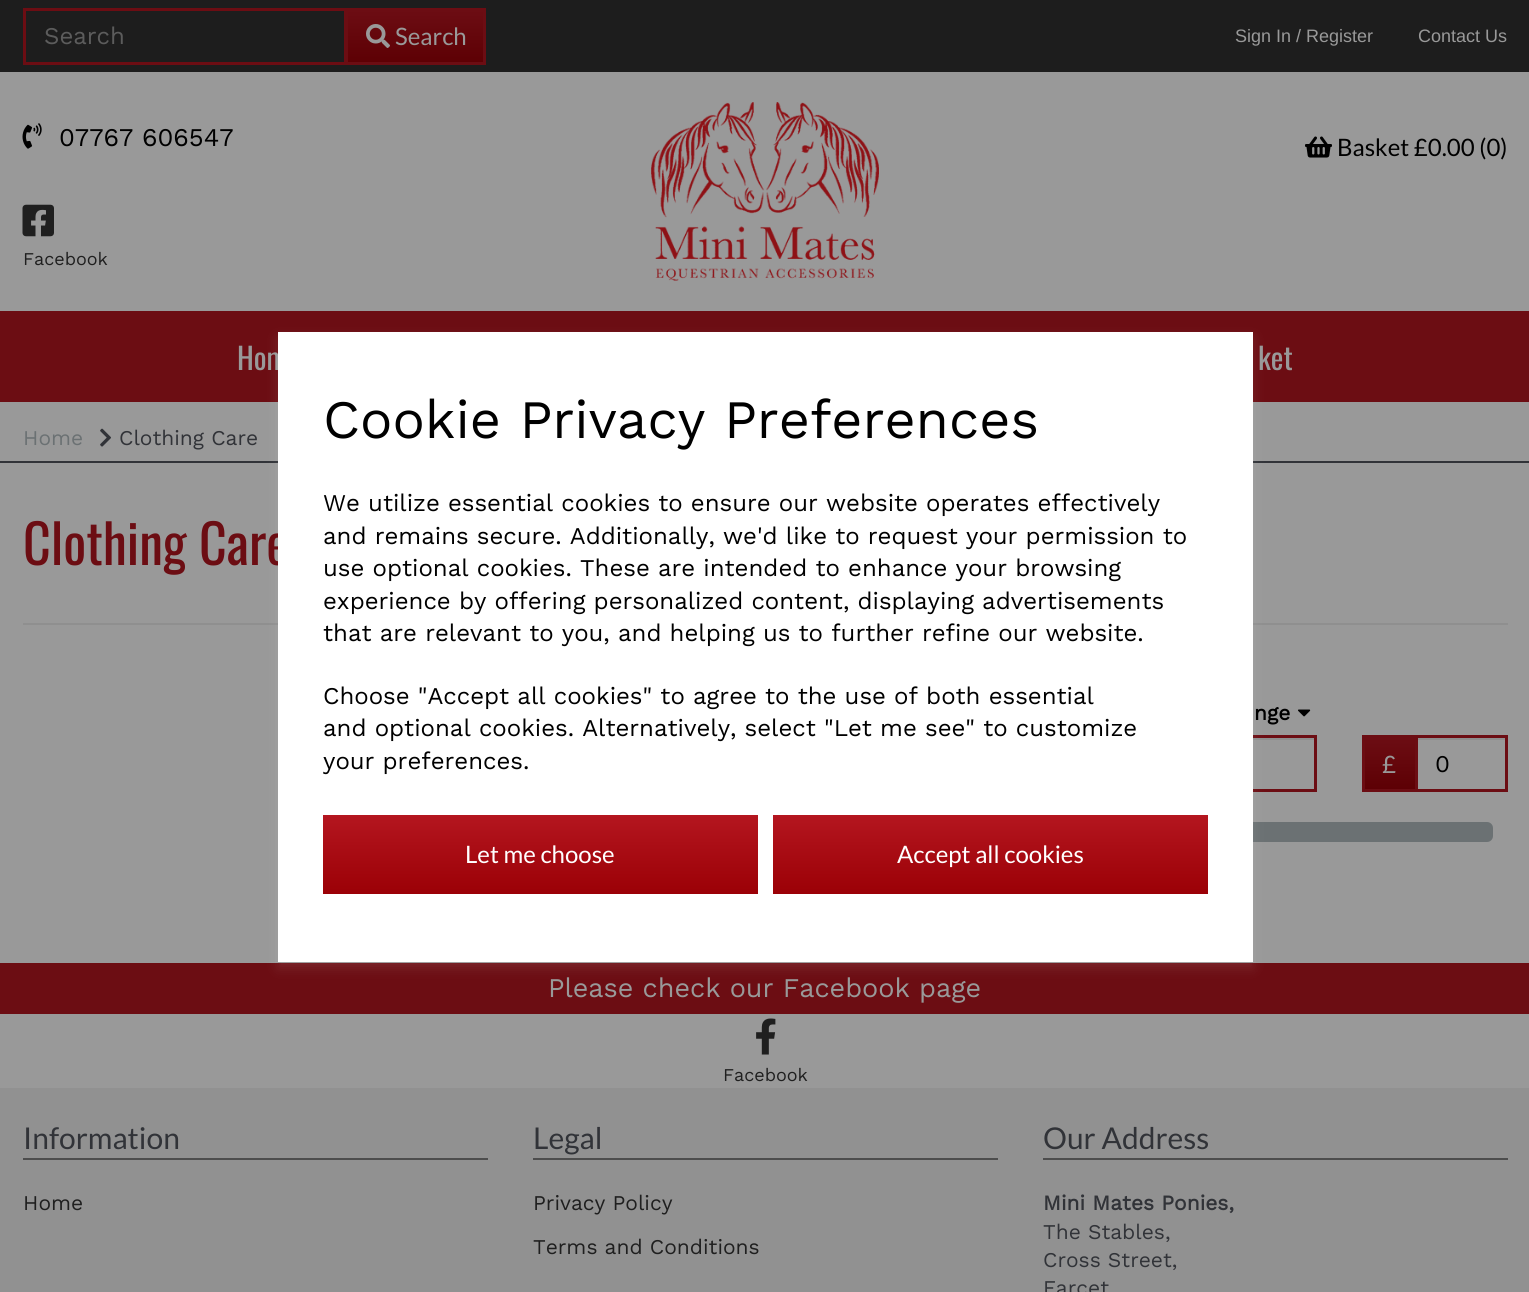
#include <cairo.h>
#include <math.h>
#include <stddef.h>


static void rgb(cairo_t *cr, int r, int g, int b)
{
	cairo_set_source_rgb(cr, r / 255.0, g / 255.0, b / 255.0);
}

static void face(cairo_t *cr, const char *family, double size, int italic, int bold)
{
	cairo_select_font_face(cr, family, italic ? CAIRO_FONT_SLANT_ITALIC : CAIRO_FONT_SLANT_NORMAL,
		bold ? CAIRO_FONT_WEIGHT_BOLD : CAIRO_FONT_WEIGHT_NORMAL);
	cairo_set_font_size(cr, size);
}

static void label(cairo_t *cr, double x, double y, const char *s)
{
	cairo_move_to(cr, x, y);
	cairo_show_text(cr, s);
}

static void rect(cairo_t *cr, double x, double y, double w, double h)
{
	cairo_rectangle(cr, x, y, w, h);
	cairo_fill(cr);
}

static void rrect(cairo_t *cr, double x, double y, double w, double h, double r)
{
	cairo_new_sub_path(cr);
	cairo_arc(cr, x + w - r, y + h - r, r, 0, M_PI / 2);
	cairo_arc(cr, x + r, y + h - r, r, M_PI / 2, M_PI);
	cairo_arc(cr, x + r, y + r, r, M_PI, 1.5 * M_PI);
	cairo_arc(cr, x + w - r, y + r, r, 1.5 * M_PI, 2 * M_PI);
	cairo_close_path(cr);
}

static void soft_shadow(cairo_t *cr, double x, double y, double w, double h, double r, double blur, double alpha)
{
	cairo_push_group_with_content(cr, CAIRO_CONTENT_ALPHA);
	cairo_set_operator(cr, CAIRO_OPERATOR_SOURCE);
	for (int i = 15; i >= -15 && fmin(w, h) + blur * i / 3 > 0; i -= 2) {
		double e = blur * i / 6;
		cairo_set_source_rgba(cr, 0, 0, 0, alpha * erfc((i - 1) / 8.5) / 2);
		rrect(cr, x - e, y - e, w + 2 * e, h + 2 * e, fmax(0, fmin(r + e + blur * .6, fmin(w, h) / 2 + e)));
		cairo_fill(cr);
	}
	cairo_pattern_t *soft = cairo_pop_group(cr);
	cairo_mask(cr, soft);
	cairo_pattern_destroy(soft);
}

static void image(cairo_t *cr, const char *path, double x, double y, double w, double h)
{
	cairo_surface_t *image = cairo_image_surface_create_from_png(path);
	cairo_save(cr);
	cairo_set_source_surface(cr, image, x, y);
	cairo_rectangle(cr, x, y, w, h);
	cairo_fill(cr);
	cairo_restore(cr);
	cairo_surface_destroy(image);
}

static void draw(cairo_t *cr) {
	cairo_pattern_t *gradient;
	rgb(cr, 153, 153, 153);
	cairo_paint(cr);
	rgb(cr, 29, 29, 29);
	rect(cr, 0, 0, 1529, 72);
	cairo_rectangle(cr, 24.5, 9.5, 321, 54);
	rgb(cr, 108, 13, 19);
	cairo_set_line_width(cr, 3);
	cairo_stroke(cr);
	face(cr, "Work Sans", 24, 0, 0);
	rgb(cr, 92, 92, 92);
	label(cr, 44, 44, "Search");
	gradient = cairo_pattern_create_linear(416, 10, 416, 62);
	cairo_pattern_add_color_stop_rgba(gradient, 0, 0.424, 0.051, 0.075, 1);
	cairo_pattern_add_color_stop_rgba(gradient, 1, 0.365, 0, 0.016, 1);
	cairo_set_source(cr, gradient);
	cairo_pattern_destroy(gradient);
	rect(cr, 348, 11, 135, 51);
	cairo_rectangle(cr, 346.5, 9.5, 138, 54);
	rgb(cr, 108, 13, 19);
	cairo_stroke(cr);
	image(cr, "image0.png", 366, 24, 24, 24);
	face(cr, "Lato", 24, 0, 0);
	rgb(cr, 153, 153, 153);
	label(cr, 395, 45, "Search");
	face(cr, "Liberation Sans", 18, 0, 0);
	label(cr, 1235, 42, "Sign In / Register");
	label(cr, 1418, 42, "Contact Us");
	rgb(cr, 108, 13, 19);
	rect(cr, 0, 311, 1529, 91);
	image(cr, "image1.png", 22, 123, 20, 26);
	face(cr, "Work Sans", 25.5, 0, 0);
	rgb(cr, 0, 0, 0);
	label(cr, 59, 146, "07767 606547");
	image(cr, "image2.png", 22, 204, 32, 33);
	face(cr, "Work Sans", 18, 0, 0);
	rgb(cr, 31, 31, 31);
	label(cr, 23, 265, "Facebook");
	image(cr, "image3.png", 651, 102, 228, 179);
	image(cr, "image4.png", 1305, 136, 27, 22);
	face(cr, "Lato", 24, 0, 0);
	rgb(cr, 0, 0, 0);
	label(cr, 1337, 156, "Basket £0.00 (0)");
	face(cr, "Oswald", 30, 0, 0);
	rgb(cr, 153, 153, 153);
	label(cr, 237, 370, "Hom");
	label(cr, 1258, 370, "ket");
	face(cr, "Work Sans", 21, 0, 0);
	rgb(cr, 107, 113, 115);
	label(cr, 23, 445, "Home");
	image(cr, "image5.png", 100, 428, 11, 19);
	rgb(cr, 49, 51, 56);
	label(cr, 119, 445, "Clothing Care");
	rect(cr, 0, 461, 1529, 2);
	rgb(cr, 143, 143, 143);
	rect(cr, 23, 623, 1485, 2);
	rgb(cr, 142, 142, 142);
	rect(cr, 1253, 738, 61, 2);
	cairo_rectangle(cr, 1224.5, 736.5, 91, 54);
	rgb(cr, 108, 13, 19);
	cairo_stroke(cr);
	rgb(cr, 107, 113, 115);
	rrect(cr, 1186, 823, 306, 18, 5);
	cairo_fill_preserve(cr);
	cairo_set_line_width(cr, 2);
	cairo_stroke(cr);
	rgb(cr, 108, 13, 19);
	rect(cr, 0, 963, 1529, 51);
	rgb(cr, 255, 255, 255);
	soft_shadow(cr, 278, 338, 975, 630, 0, 6, 0.1);
	face(cr, "Oswald", 54, 0, 0);
	rgb(cr, 108, 13, 19);
	label(cr, 23, 565, "Clothing Care");
	rgb(cr, 255, 255, 255);
	rect(cr, 278, 332, 975, 630);
	face(cr, "Work Sans", 54, 0, 0);
	rgb(cr, 0, 0, 0);
	label(cr, 323, 438, "Cookie Privacy Preferences");
	face(cr, "Work Sans", 24, 0, 0);
	label(cr, 323, 511, "We utilize essential cookies to ensure our website operates effectively");
	label(cr, 323, 544, "and remains secure. Additionally, we'd like to request your permission to");
	label(cr, 323, 576, "use optional cookies. These are intended to enhance your browsing");
	label(cr, 323, 609, "experience by offering personalized content, displaying advertisements");
	label(cr, 323, 641, "that are relevant to you, and helping us to further refine our website.");
	label(cr, 323, 704, "Choose \"Accept all cookies\" to agree to the use of both essential");
	label(cr, 323, 736, "and optional cookies. Alternatively, select \"Let me see\" to customize");
	label(cr, 323, 769, "your preferences.");
	gradient = cairo_pattern_create_linear(540, 815, 540, 894);
	cairo_pattern_add_color_stop_rgba(gradient, 0, 0.706, 0.086, 0.122, 1);
	cairo_pattern_add_color_stop_rgba(gradient, 1, 0.608, 0, 0.024, 1);
	cairo_set_source(cr, gradient);
	cairo_pattern_destroy(gradient);
	rect(cr, 323, 815, 435, 79);
	face(cr, "Lato", 24, 0, 0);
	rgb(cr, 255, 255, 255);
	label(cr, 465, 863, "Let me choose");
	gradient = cairo_pattern_create_linear(990, 815, 990, 894);
	cairo_pattern_add_color_stop_rgba(gradient, 0, 0.706, 0.086, 0.122, 1);
	cairo_pattern_add_color_stop_rgba(gradient, 1, 0.608, 0, 0.024, 1);
	cairo_set_source(cr, gradient);
	cairo_pattern_destroy(gradient);
	rect(cr, 773, 815, 435, 79);
	rgb(cr, 255, 255, 255);
	label(cr, 897, 863, "Accept all cookies");
	face(cr, "Work Sans", 21, 0, 1);
	rgb(cr, 0, 0, 0);
	label(cr, 1254, 720, "nge");
	image(cr, "image6.png", 1298, 709, 13, 8);
	rgb(cr, 108, 13, 19);
	rect(cr, 1365, 789, 50, 3);
	gradient = cairo_pattern_create_linear(1390, 738, 1390, 789);
	cairo_pattern_add_color_stop_rgba(gradient, 0, 0.424, 0.051, 0.075, 1);
	cairo_pattern_add_color_stop_rgba(gradient, 1, 0.365, 0, 0.016, 1);
	cairo_set_source(cr, gradient);
	cairo_pattern_destroy(gradient);
	rect(cr, 1365, 738, 50, 51);
	rgb(cr, 108, 13, 19);
	rect(cr, 1362, 735, 53, 3);
	rect(cr, 1362, 735, 3, 57);
	face(cr, "Lato", 24, 0, 0);
	rgb(cr, 153, 153, 153);
	label(cr, 1382, 773, "£");
	rgb(cr, 142, 142, 142);
	rect(cr, 1418, 738, 87, 2);
	cairo_rectangle(cr, 1416.5, 736.5, 90, 54);
	rgb(cr, 108, 13, 19);
	cairo_set_line_width(cr, 3);
	cairo_stroke(cr);
	face(cr, "Work Sans", 24, 0, 0);
	rgb(cr, 0, 0, 0);
	label(cr, 1435, 772, "0");
	face(cr, "Work Sans", 27, 0, 0);
	rgb(cr, 153, 153, 153);
	label(cr, 548, 997, "Please check our Facebook page");
	image(cr, "image7.png", 756, 1018, 20, 37);
	face(cr, "Work Sans", 18, 0, 0);
	rgb(cr, 31, 31, 31);
	label(cr, 723, 1081, "Facebook");
	rgb(cr, 145, 145, 145);
	rect(cr, 0, 1088, 1529, 204);
	rgb(cr, 77, 77, 77);
	rect(cr, 23, 1158, 465, 2);
	face(cr, "Lato", 30, 0, 0);
	rgb(cr, 49, 51, 56);
	label(cr, 23, 1149, "Information");
	face(cr, "Work Sans", 21, 0, 0);
	rgb(cr, 31, 31, 31);
	label(cr, 23, 1210, "Home");
	rgb(cr, 77, 77, 77);
	rect(cr, 533, 1158, 465, 2);
	face(cr, "Lato", 30, 0, 0);
	rgb(cr, 49, 51, 56);
	label(cr, 533, 1149, "Legal");
	face(cr, "Work Sans", 21, 0, 0);
	rgb(cr, 31, 31, 31);
	label(cr, 533, 1210, "Privacy Policy");
	label(cr, 533, 1254, "Terms and Conditions");
	rgb(cr, 77, 77, 77);
	rect(cr, 1043, 1158, 465, 2);
	face(cr, "Lato", 30, 0, 0);
	rgb(cr, 49, 51, 56);
	label(cr, 1043, 1149, "Our Address");
	face(cr, "Work Sans", 21, 0, 1);
	label(cr, 1043, 1210, "Mini Mates Ponies,");
	face(cr, "Work Sans", 21, 0, 0);
	label(cr, 1043, 1239, "The Stables,");
	label(cr, 1043, 1267, "Cross Street,");
	label(cr, 1043, 1295, "Farcet");
}

int main(void) {
	cairo_surface_t *surface = cairo_image_surface_create(CAIRO_FORMAT_RGB24, 1529, 1292);
	cairo_t *cr = cairo_create(surface);
	cairo_font_options_t *options = cairo_font_options_create();
	cairo_font_options_set_hint_metrics(options, CAIRO_HINT_METRICS_OFF);
	cairo_font_options_set_hint_style(options, CAIRO_HINT_STYLE_NONE);
	cairo_set_font_options(cr, options);
	cairo_set_miter_limit(cr, 4);
	draw(cr);
	cairo_surface_write_to_png(surface, "render.png");
	cairo_font_options_destroy(options);
	cairo_destroy(cr);
	cairo_surface_destroy(surface);
	return 0;
}
